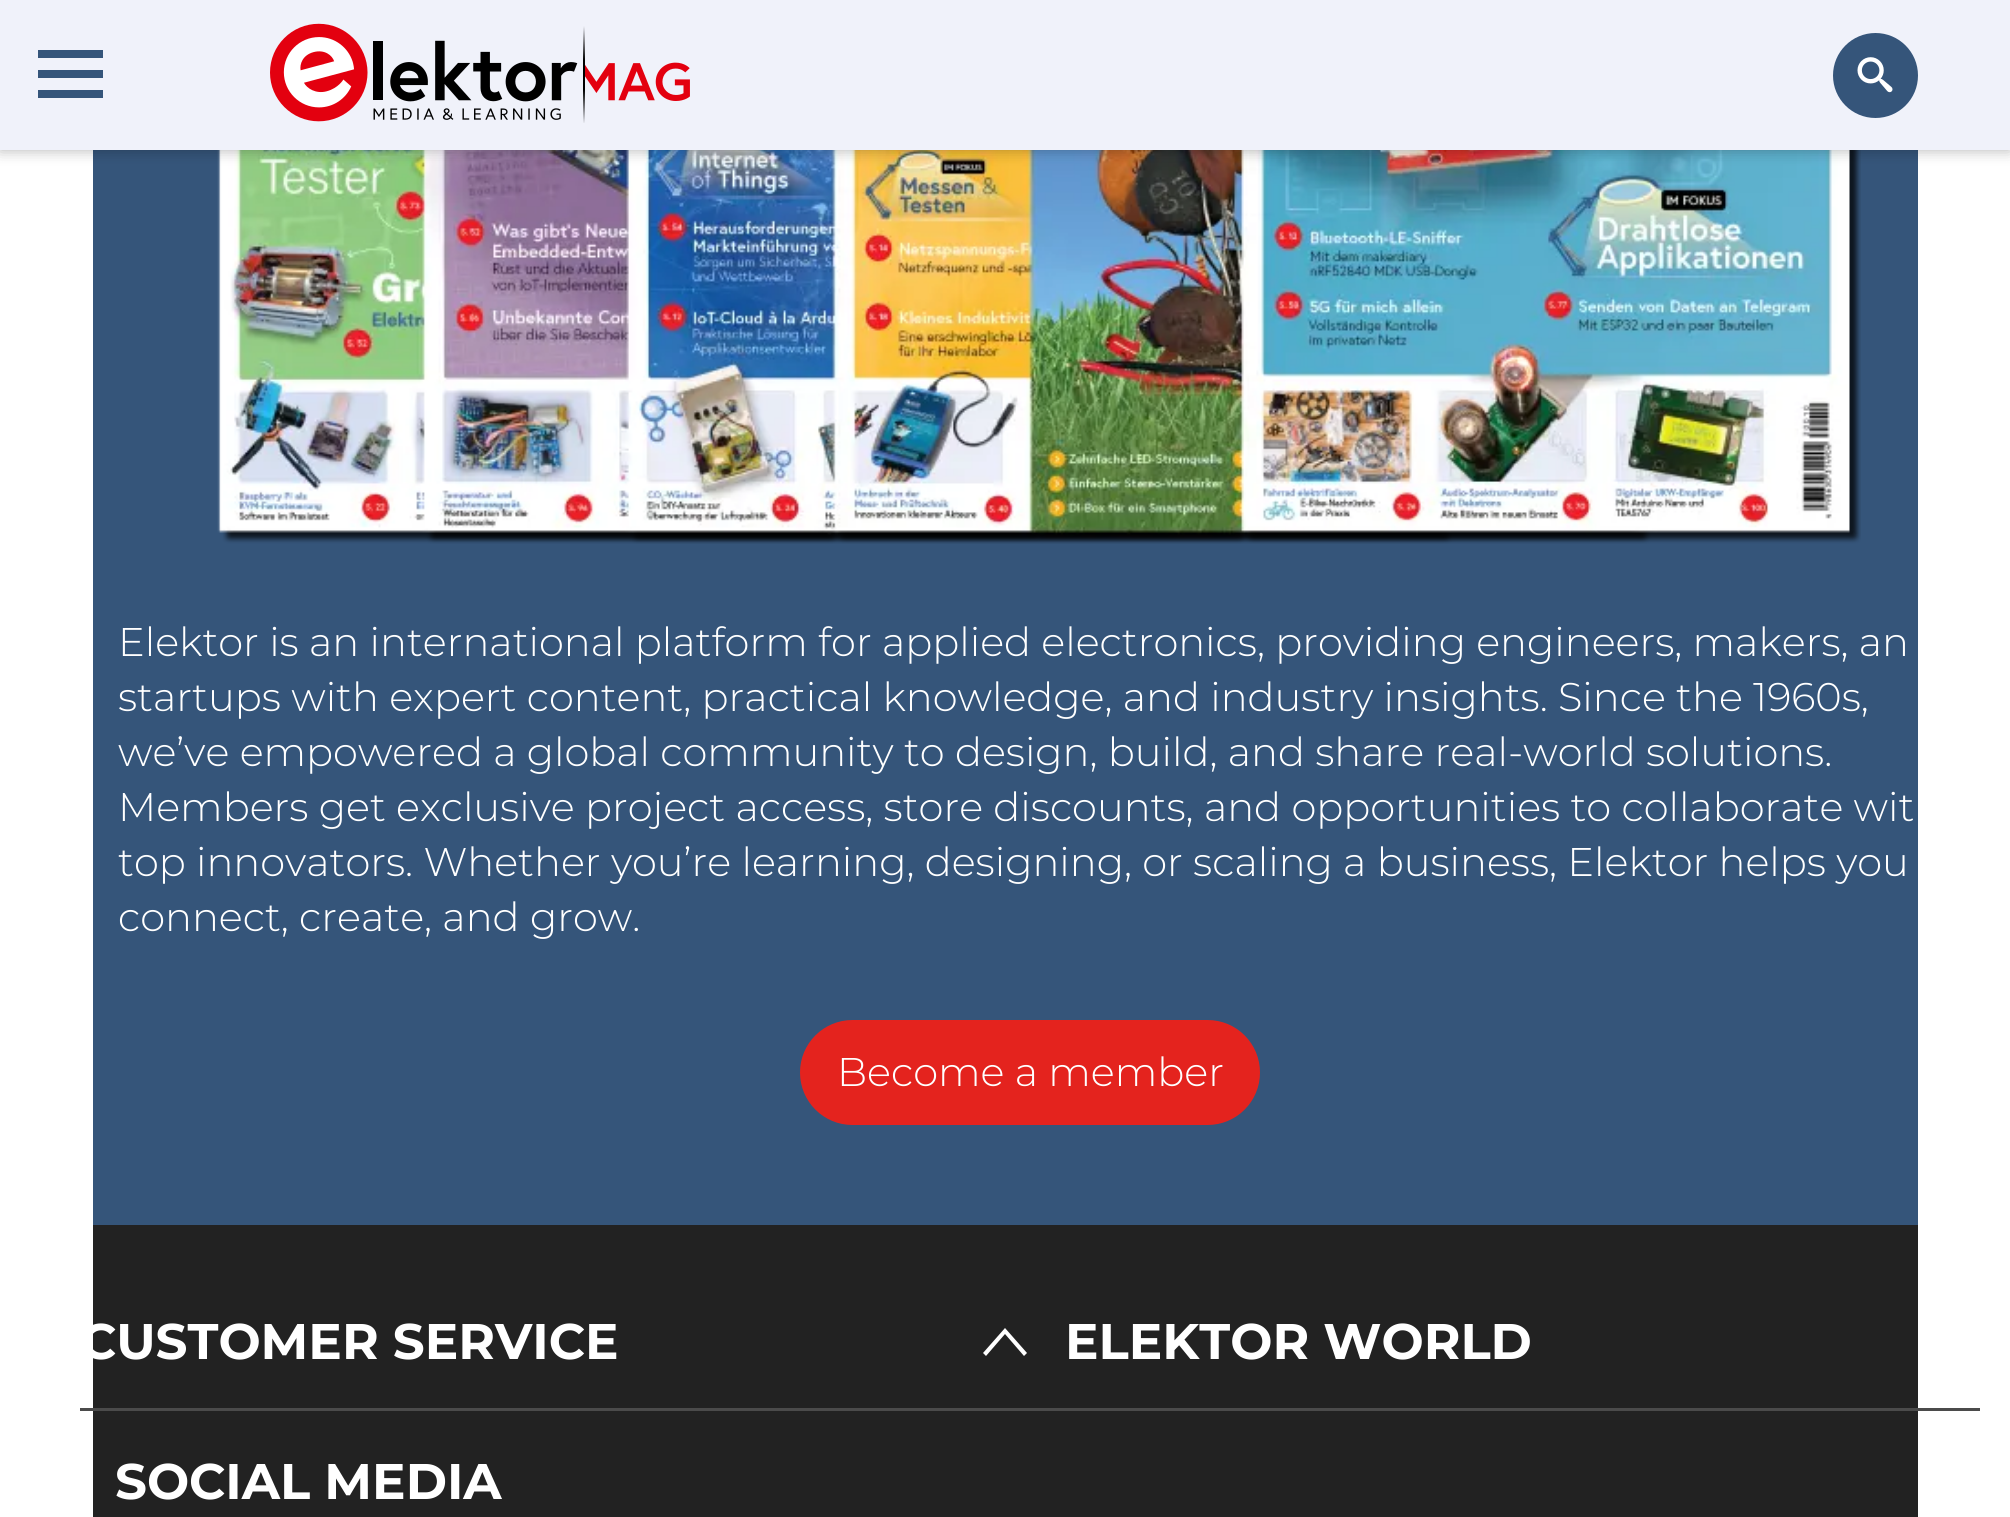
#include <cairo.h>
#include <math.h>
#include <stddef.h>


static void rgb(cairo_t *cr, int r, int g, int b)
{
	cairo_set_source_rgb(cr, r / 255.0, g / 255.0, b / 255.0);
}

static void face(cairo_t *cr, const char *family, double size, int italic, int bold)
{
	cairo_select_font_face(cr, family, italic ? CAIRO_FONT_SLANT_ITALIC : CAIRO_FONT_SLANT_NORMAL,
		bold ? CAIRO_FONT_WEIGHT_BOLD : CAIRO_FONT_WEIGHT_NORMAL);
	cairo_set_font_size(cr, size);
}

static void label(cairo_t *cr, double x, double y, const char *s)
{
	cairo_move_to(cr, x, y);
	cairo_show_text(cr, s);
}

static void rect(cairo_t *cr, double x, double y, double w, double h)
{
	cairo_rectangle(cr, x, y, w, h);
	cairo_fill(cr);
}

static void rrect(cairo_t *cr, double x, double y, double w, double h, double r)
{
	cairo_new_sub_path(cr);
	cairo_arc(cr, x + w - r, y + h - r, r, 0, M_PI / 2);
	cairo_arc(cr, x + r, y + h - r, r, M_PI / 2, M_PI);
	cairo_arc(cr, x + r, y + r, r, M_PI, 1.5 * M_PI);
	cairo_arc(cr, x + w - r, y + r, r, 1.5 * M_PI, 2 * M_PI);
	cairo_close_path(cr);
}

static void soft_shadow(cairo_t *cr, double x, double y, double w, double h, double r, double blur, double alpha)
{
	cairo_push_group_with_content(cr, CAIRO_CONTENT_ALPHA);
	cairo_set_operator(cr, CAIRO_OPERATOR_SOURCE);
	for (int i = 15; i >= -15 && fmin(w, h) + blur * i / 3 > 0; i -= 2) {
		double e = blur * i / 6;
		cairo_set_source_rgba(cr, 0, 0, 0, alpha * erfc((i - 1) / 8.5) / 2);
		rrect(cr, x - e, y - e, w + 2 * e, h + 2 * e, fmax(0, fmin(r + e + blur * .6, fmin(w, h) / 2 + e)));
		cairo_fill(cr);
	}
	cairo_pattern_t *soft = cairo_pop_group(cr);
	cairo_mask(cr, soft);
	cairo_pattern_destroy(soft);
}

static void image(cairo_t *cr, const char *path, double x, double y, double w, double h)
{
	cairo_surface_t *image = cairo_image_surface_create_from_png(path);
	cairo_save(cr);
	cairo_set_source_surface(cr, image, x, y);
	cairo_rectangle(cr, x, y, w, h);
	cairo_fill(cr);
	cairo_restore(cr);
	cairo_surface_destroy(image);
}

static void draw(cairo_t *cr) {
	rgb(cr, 255, 255, 255);
	cairo_paint(cr);
	rgb(cr, 53, 85, 122);
	rect(cr, 93, 150, 1825, 1075);
	image(cr, "image2.png", 217, 150, 1644, 394);
	rgb(cr, 0, 0, 0);
	soft_shadow(cr, 0, 0, 2010, 150, 0, 7.5, 0.3);
	rgb(cr, 240, 242, 250);
	rect(cr, 0, 0, 2010, 150);
	rgb(cr, 53, 85, 122);
	rect(cr, 38, 50, 65, 8);
	rect(cr, 38, 70, 65, 8);
	rect(cr, 38, 90, 65, 8);
	image(cr, "image0.png", 270, 23, 420, 100);
	cairo_arc(cr, 1875.5, 75.5, 42.5, 0, 2 * M_PI);
	cairo_fill(cr);
	image(cr, "image1.png", 1857, 57, 36, 36);
	rgb(cr, 34, 34, 34);
	rect(cr, 93, 1225, 1825, 292);
	face(cr, "Montserrat Light", 40, 0, 0);
	rgb(cr, 255, 255, 255);
	label(cr, 118, 656, "Elektor is an international platform for applied electronics, providing engineers, makers, an");
	label(cr, 118, 711, "startups with expert content, practical knowledge, and industry insights. Since the 1960s,");
	label(cr, 118, 766, "we’ve empowered a global community to design, build, and share real-world solutions.");
	label(cr, 118, 821, "Members get exclusive project access, store discounts, and opportunities to collaborate wit");
	label(cr, 118, 876, "top innovators. Whether you’re learning, designing, or scaling a business, Elektor helps you");
	label(cr, 118, 931, "connect, create, and grow.");
	rgb(cr, 228, 35, 30);
	rrect(cr, 800, 1020, 460, 105, 52.5);
	cairo_fill(cr);
	rgb(cr, 255, 255, 255);
	label(cr, 837, 1086, "Become a member");
	rgb(cr, 75, 75, 75);
	rect(cr, 80, 1408, 1900, 3);
	rgb(cr, 255, 255, 255);
	cairo_new_path(cr);
	cairo_move_to(cr, 1027, 1353);
	cairo_line_to(cr, 1024, 1356);
	cairo_line_to(cr, 1005, 1334);
	cairo_line_to(cr, 986, 1356);
	cairo_line_to(cr, 983, 1353);
	cairo_line_to(cr, 1005, 1328);
	cairo_close_path(cr);
	cairo_fill(cr);
	face(cr, "Montserrat", 50, 0, 1);
	label(cr, 80, 1359, "CUSTOMER SERVICE");
	label(cr, 1065, 1359, "ELEKTOR WORLD");
	label(cr, 115, 1499, "SOCIAL MEDIA");
}

int main(void) {
	cairo_surface_t *surface = cairo_image_surface_create(CAIRO_FORMAT_RGB24, 2010, 1517);
	cairo_t *cr = cairo_create(surface);
	cairo_font_options_t *options = cairo_font_options_create();
	cairo_font_options_set_hint_metrics(options, CAIRO_HINT_METRICS_OFF);
	cairo_font_options_set_hint_style(options, CAIRO_HINT_STYLE_NONE);
	cairo_set_font_options(cr, options);
	cairo_set_miter_limit(cr, 4);
	draw(cr);
	cairo_surface_write_to_png(surface, "render.png");
	cairo_font_options_destroy(options);
	cairo_destroy(cr);
	cairo_surface_destroy(surface);
	return 0;
}
